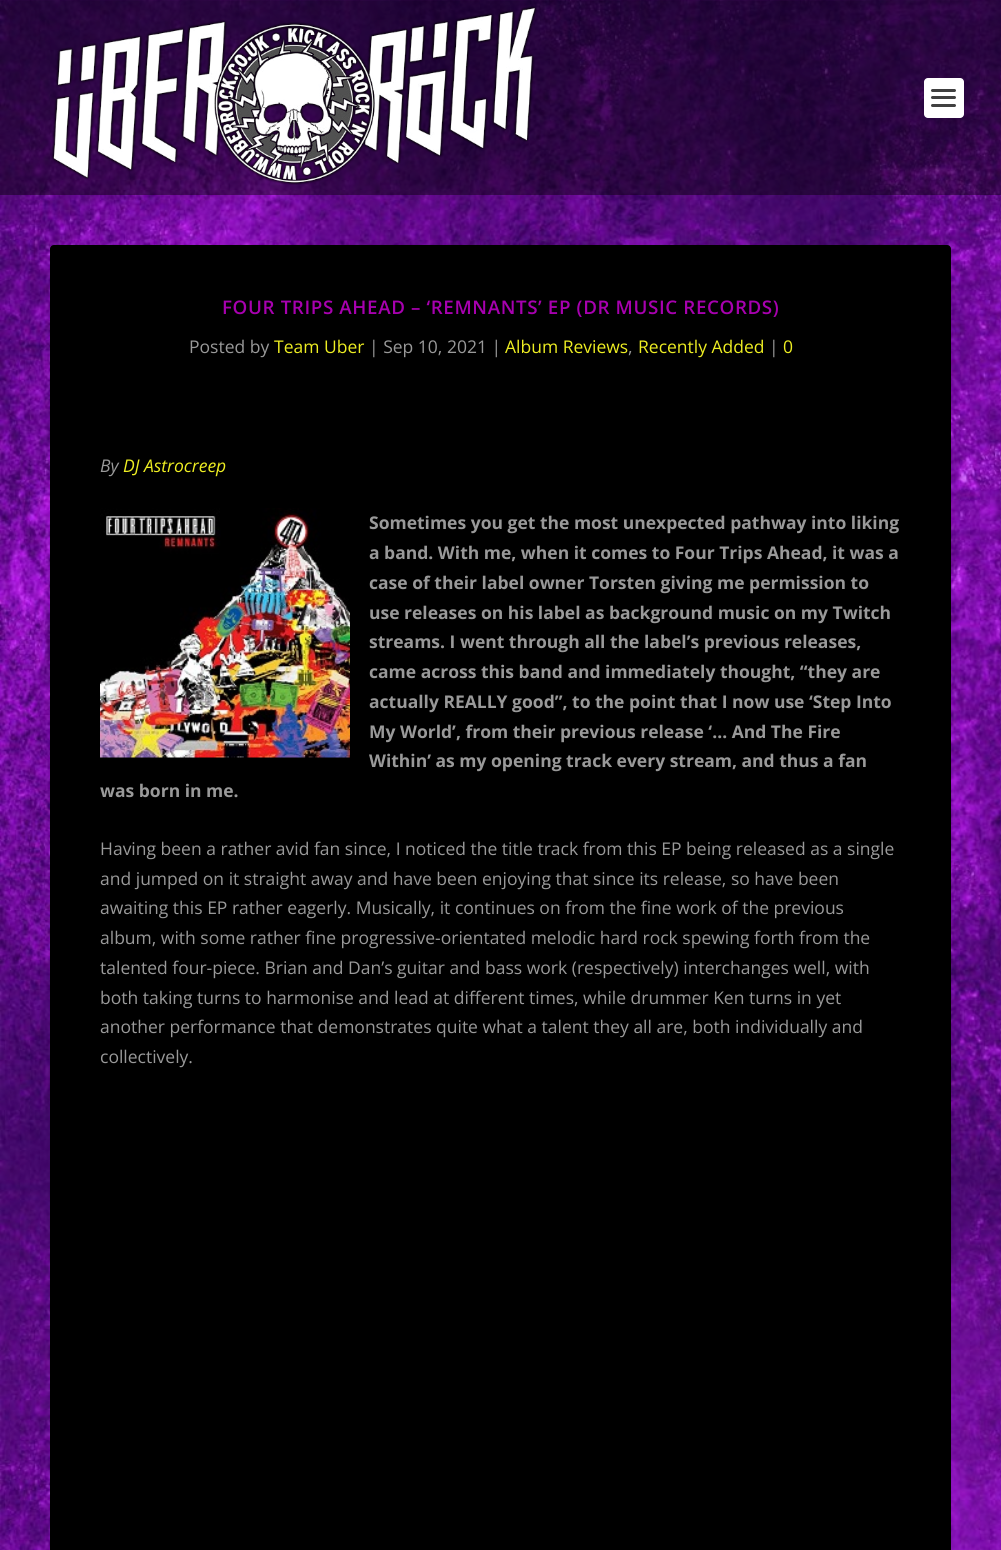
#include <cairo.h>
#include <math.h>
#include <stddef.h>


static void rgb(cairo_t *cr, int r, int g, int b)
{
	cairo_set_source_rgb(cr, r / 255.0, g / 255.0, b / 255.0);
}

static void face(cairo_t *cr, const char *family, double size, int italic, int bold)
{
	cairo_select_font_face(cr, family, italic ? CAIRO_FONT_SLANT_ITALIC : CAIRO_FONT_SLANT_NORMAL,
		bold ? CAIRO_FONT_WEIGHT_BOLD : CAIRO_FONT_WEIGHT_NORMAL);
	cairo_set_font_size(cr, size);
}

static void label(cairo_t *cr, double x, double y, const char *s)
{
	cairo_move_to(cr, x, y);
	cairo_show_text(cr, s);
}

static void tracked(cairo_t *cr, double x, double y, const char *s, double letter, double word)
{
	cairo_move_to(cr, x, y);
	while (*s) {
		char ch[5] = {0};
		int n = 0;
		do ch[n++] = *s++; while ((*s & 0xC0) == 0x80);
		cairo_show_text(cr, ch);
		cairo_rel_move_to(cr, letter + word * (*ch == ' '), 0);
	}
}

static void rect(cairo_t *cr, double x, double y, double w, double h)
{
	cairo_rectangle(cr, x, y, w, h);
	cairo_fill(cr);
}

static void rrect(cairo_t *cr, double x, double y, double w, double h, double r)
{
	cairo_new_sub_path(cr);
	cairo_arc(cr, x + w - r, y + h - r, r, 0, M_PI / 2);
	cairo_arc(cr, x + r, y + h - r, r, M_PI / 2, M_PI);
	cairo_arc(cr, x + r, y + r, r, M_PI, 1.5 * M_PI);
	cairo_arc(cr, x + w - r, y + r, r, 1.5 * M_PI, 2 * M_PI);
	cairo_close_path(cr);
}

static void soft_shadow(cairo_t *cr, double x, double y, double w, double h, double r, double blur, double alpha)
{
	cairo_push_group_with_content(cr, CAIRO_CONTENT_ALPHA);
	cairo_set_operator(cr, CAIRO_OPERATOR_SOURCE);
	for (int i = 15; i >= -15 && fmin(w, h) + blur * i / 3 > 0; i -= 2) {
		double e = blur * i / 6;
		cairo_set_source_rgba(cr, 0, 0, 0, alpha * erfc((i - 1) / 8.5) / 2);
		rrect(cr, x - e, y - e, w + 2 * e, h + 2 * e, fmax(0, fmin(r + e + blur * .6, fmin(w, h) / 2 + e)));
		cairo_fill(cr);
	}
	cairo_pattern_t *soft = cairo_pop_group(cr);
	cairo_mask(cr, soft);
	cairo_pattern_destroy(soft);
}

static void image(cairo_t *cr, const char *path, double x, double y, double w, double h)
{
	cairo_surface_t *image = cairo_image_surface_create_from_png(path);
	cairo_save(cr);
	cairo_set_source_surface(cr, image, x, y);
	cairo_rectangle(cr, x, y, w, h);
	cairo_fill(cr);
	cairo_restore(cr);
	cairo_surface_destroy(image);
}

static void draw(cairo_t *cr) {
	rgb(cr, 255, 255, 255);
	cairo_paint(cr);
	image(cr, "image0.png", 0, 0, 1001, 1550);
	cairo_set_source_rgba(cr, 0, 0, 0, 0.43);
	rect(cr, 0, 0, 1001, 195);
	image(cr, "image1.png", 51, 6, 486, 179);
	rgb(cr, 255, 255, 255);
	rrect(cr, 924, 78, 40, 40, 4);
	cairo_fill(cr);
	rgb(cr, 64, 64, 64);
	rrect(cr, 931, 89, 25, 3, 1.5);
	cairo_fill(cr);
	rrect(cr, 931, 96, 25, 3, 1.5);
	cairo_fill(cr);
	rrect(cr, 931, 104, 25, 3, 1.5);
	cairo_fill(cr);
	rgb(cr, 0, 0, 0);
	soft_shadow(cr, 50, 246, 901, 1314, 4, 2, 0.1);
	rgb(cr, 0, 0, 0);
	rrect(cr, 50, 245, 901, 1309, 4);
	cairo_fill(cr);
	face(cr, "Open Sans SemiBold", 18.75, 0, 0);
	rgb(cr, 167, 0, 175);
	tracked(cr, 222, 314, "FOUR TRIPS AHEAD – ‘REMNANTS’ EP (DR MUSIC RECORDS)", 0.62, 0);
	face(cr, "Open Sans", 17.5, 0, 0);
	rgb(cr, 153, 153, 153);
	label(cr, 189, 353, "Posted by");
	rgb(cr, 238, 238, 34);
	label(cr, 274, 353, "Team Uber");
	rgb(cr, 153, 153, 153);
	label(cr, 369, 353, "| Sep 10, 2021 |");
	rgb(cr, 238, 238, 34);
	label(cr, 505, 353, "Album Reviews");
	rgb(cr, 153, 153, 153);
	label(cr, 628, 353, ",");
	rgb(cr, 238, 238, 34);
	label(cr, 638, 353, "Recently Added");
	rgb(cr, 153, 153, 153);
	label(cr, 769, 353, "|");
	rgb(cr, 238, 238, 34);
	label(cr, 783, 353, "0");
	face(cr, "Open Sans", 17.5, 1, 0);
	rgb(cr, 153, 153, 153);
	label(cr, 100, 472, "By");
	rgb(cr, 238, 238, 34);
	label(cr, 123, 472, "DJ Astrocreep");
	image(cr, "image2.png", 100, 508, 250, 250);
	face(cr, "Open Sans", 17.5, 0, 1);
	rgb(cr, 153, 153, 153);
	label(cr, 369, 529, "Sometimes you get the most unexpected pathway into liking");
	label(cr, 369, 559, "a band. With me, when it comes to Four Trips Ahead, it was a");
	label(cr, 369, 589, "case of their label owner Torsten giving me permission to");
	label(cr, 369, 619, "use releases on his label as background music on my Twitch");
	label(cr, 369, 648, "streams. I went through all the label’s previous releases,");
	label(cr, 369, 678, "came across this band and immediately thought, “they are");
	label(cr, 369, 708, "actually REALLY good”, to the point that I now use ‘Step Into");
	label(cr, 369, 738, "My World’, from their previous release ‘… And The Fire");
	label(cr, 369, 767, "Within’ as my opening track every stream, and thus a fan");
	label(cr, 100, 797, "was born in me.");
	face(cr, "Open Sans", 17.5, 0, 0);
	label(cr, 100, 855, "Having been a rather avid fan since, I noticed the title track from this EP being released as a single");
	label(cr, 100, 885, "and jumped on it straight away and have been enjoying that since its release, so have been");
	label(cr, 100, 914, "awaiting this EP rather eagerly. Musically, it continues on from the fine work of the previous");
	label(cr, 100, 944, "album, with some rather fine progressive-orientated melodic hard rock spewing forth from the");
	label(cr, 100, 974, "talented four-piece. Brian and Dan’s guitar and bass work (respectively) interchanges well, with");
	label(cr, 100, 1004, "both taking turns to harmonise and lead at different times, while drummer Ken turns in yet");
	label(cr, 100, 1033, "another performance that demonstrates quite what a talent they all are, both individually and");
	label(cr, 100, 1063, "collectively.");
}

int main(void) {
	cairo_surface_t *surface = cairo_image_surface_create(CAIRO_FORMAT_RGB24, 1001, 1550);
	cairo_t *cr = cairo_create(surface);
	cairo_font_options_t *options = cairo_font_options_create();
	cairo_font_options_set_hint_metrics(options, CAIRO_HINT_METRICS_OFF);
	cairo_font_options_set_hint_style(options, CAIRO_HINT_STYLE_NONE);
	cairo_set_font_options(cr, options);
	cairo_set_miter_limit(cr, 4);
	draw(cr);
	cairo_surface_write_to_png(surface, "render.png");
	cairo_font_options_destroy(options);
	cairo_destroy(cr);
	cairo_surface_destroy(surface);
	return 0;
}
